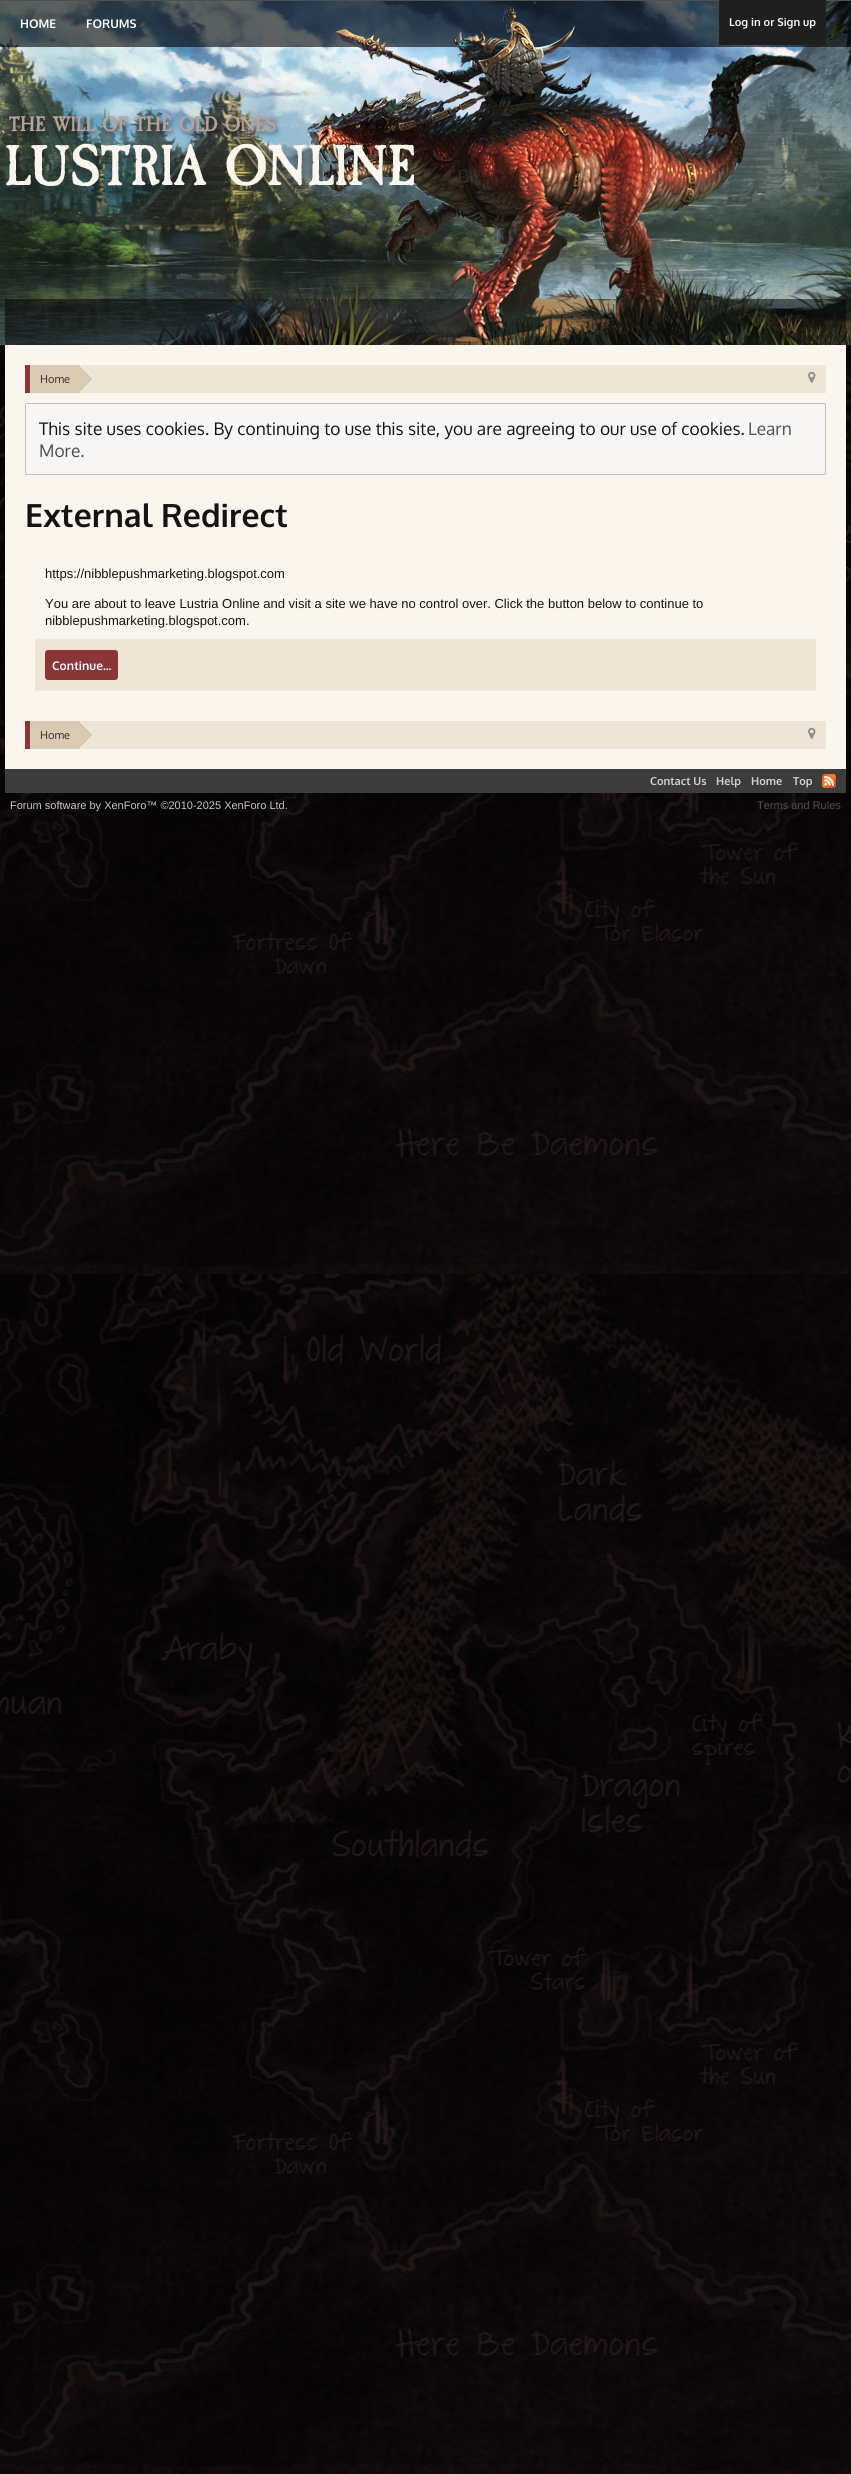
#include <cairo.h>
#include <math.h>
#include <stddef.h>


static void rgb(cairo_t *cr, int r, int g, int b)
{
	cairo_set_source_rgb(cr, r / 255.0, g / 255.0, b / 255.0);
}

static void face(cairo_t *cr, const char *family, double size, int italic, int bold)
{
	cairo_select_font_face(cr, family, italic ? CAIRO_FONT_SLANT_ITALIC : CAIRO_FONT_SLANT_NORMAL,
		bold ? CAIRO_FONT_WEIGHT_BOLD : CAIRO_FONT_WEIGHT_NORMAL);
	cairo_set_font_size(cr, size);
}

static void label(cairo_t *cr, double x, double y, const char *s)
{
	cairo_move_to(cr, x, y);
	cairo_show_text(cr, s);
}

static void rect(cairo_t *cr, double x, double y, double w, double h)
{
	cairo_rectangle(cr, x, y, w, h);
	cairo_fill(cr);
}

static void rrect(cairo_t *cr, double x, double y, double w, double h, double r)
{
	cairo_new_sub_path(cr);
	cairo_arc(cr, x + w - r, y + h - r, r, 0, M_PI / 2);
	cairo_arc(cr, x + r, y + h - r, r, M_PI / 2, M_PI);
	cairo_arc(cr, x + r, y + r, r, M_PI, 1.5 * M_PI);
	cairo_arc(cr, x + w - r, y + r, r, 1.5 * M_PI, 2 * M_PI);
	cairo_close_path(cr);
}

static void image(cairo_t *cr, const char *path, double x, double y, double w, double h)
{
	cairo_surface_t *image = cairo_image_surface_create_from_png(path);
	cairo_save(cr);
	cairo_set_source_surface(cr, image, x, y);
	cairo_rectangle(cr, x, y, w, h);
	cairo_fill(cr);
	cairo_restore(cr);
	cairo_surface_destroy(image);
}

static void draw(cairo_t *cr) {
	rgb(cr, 255, 255, 255);
	cairo_paint(cr);
	image(cr, "image0.png", 0, 345, 851, 2129);
	rgb(cr, 79, 79, 79);
	rect(cr, 0, 0, 851, 1);
	image(cr, "image1.png", 0, 1, 851, 344);
	cairo_set_source_rgba(cr, 0, 0, 0, 0.6);
	rect(cr, 0, 1, 851, 46);
	cairo_set_source_rgba(cr, 0, 0, 0, 0.5);
	rect(cr, 5, 299, 841, 46);
	image(cr, "image2.png", 139, 1, 712, 344);
	rgb(cr, 31, 31, 31);
	rect(cr, 719, 0, 107, 45);
	face(cr, "Oxygen", 11, 0, 1);
	rgb(cr, 250, 246, 237);
	label(cr, 729, 26, "Log in or Sign up");
	face(cr, "Oxygen", 12, 0, 1);
	rgb(cr, 250, 250, 250);
	label(cr, 20, 28, "HOME");
	label(cr, 86, 28, "FORUMS");
	image(cr, "image3.png", 6, 115, 413, 83);
	rgb(cr, 250, 246, 237);
	rect(cr, 5, 345, 841, 424);
	rgb(cr, 238, 229, 215);
	rect(cr, 80, 365, 746, 28);
	rgb(cr, 138, 53, 56);
	rect(cr, 25, 365, 5, 28);
	rgb(cr, 217, 202, 180);
	rect(cr, 30, 365, 50, 28);
	face(cr, "Oxygen", 11, 0, 0);
	rgb(cr, 67, 39, 38);
	label(cr, 40, 383, "Home");
	rgb(cr, 250, 246, 237);
	cairo_new_path(cr);
	cairo_move_to(cr, 80, 393);
	cairo_line_to(cr, 80, 365);
	cairo_line_to(cr, 94, 379);
	cairo_close_path(cr);
	cairo_fill(cr);
	rgb(cr, 217, 202, 180);
	cairo_new_path(cr);
	cairo_move_to(cr, 79, 393);
	cairo_line_to(cr, 79, 365);
	cairo_line_to(cr, 93, 379);
	cairo_close_path(cr);
	cairo_fill(cr);
	image(cr, "image4.png", 808, 371, 8, 12);
	rgb(cr, 247, 246, 245);
	rrect(cr, 25.5, 403.5, 800, 71, 1.5);
	cairo_fill_preserve(cr);
	rgb(cr, 194, 190, 188);
	cairo_set_line_width(cr, 1);
	cairo_stroke(cr);
	face(cr, "Oxygen", 17.35, 0, 0);
	rgb(cr, 20, 20, 20);
	label(cr, 39, 435, "This site uses cookies. By continuing to use this site, you are agreeing to our use of cookies.");
	rgb(cr, 79, 79, 79);
	label(cr, 748, 435, "Learn");
	label(cr, 39, 457, "More.");
	face(cr, "Oxygen", 32, 0, 1);
	rgb(cr, 20, 20, 20);
	label(cr, 25, 527, "External Redirect");
	rgb(cr, 233, 233, 233);
	rect(cr, 35, 639, 781, 1);
	face(cr, "Liberation Sans", 13, 0, 0);
	rgb(cr, 20, 20, 20);
	label(cr, 45, 578, "https://nibblepushmarketing.blogspot.com");
	label(cr, 45, 608, "You are about to leave Lustria Online and visit a site we have no control over. Click the button below to continue to");
	label(cr, 45, 625, "nibblepushmarketing.blogspot.com.");
	rgb(cr, 238, 229, 215);
	rect(cr, 35, 640, 781, 50);
	rgb(cr, 233, 233, 233);
	rect(cr, 35, 690, 781, 1);
	rgb(cr, 138, 53, 56);
	rrect(cr, 45, 650, 73, 30, 3);
	cairo_fill(cr);
	face(cr, "Oxygen", 12, 0, 1);
	rgb(cr, 250, 250, 250);
	label(cr, 52, 670, "Continue...");
	rgb(cr, 238, 229, 215);
	rect(cr, 80, 721, 746, 28);
	rgb(cr, 138, 53, 56);
	rect(cr, 25, 721, 5, 28);
	rgb(cr, 217, 202, 180);
	rect(cr, 30, 721, 50, 28);
	face(cr, "Oxygen", 11, 0, 0);
	rgb(cr, 67, 39, 38);
	label(cr, 40, 739, "Home");
	rgb(cr, 250, 246, 237);
	cairo_new_path(cr);
	cairo_move_to(cr, 80, 749);
	cairo_line_to(cr, 80, 721);
	cairo_line_to(cr, 94, 735);
	cairo_close_path(cr);
	cairo_fill(cr);
	rgb(cr, 217, 202, 180);
	cairo_new_path(cr);
	cairo_move_to(cr, 79, 749);
	cairo_line_to(cr, 79, 721);
	cairo_line_to(cr, 93, 735);
	cairo_close_path(cr);
	cairo_fill(cr);
	image(cr, "image4.png", 808, 727, 8, 12);
	rgb(cr, 60, 60, 60);
	rect(cr, 5, 769, 841, 24);
	face(cr, "Oxygen", 11, 0, 1);
	rgb(cr, 210, 210, 210);
	label(cr, 650, 785, "Contact Us");
	label(cr, 716, 785, "Help");
	label(cr, 751, 785, "Home");
	label(cr, 793, 785, "Top");
	image(cr, "image5.png", 822, 774, 14, 14);
	face(cr, "Liberation Sans", 11, 0, 0);
	rgb(cr, 200, 200, 200);
	label(cr, 10, 809, "Forum software by XenForo™ ©2010-2025 XenForo Ltd.");
	rgb(cr, 79, 79, 79);
	label(cr, 757, 809, "Terms and Rules");
}

int main(void) {
	cairo_surface_t *surface = cairo_image_surface_create(CAIRO_FORMAT_RGB24, 851, 2474);
	cairo_t *cr = cairo_create(surface);
	cairo_font_options_t *options = cairo_font_options_create();
	cairo_font_options_set_hint_metrics(options, CAIRO_HINT_METRICS_OFF);
	cairo_font_options_set_hint_style(options, CAIRO_HINT_STYLE_NONE);
	cairo_set_font_options(cr, options);
	cairo_set_miter_limit(cr, 4);
	draw(cr);
	cairo_surface_write_to_png(surface, "render.png");
	cairo_font_options_destroy(options);
	cairo_destroy(cr);
	cairo_surface_destroy(surface);
	return 0;
}
